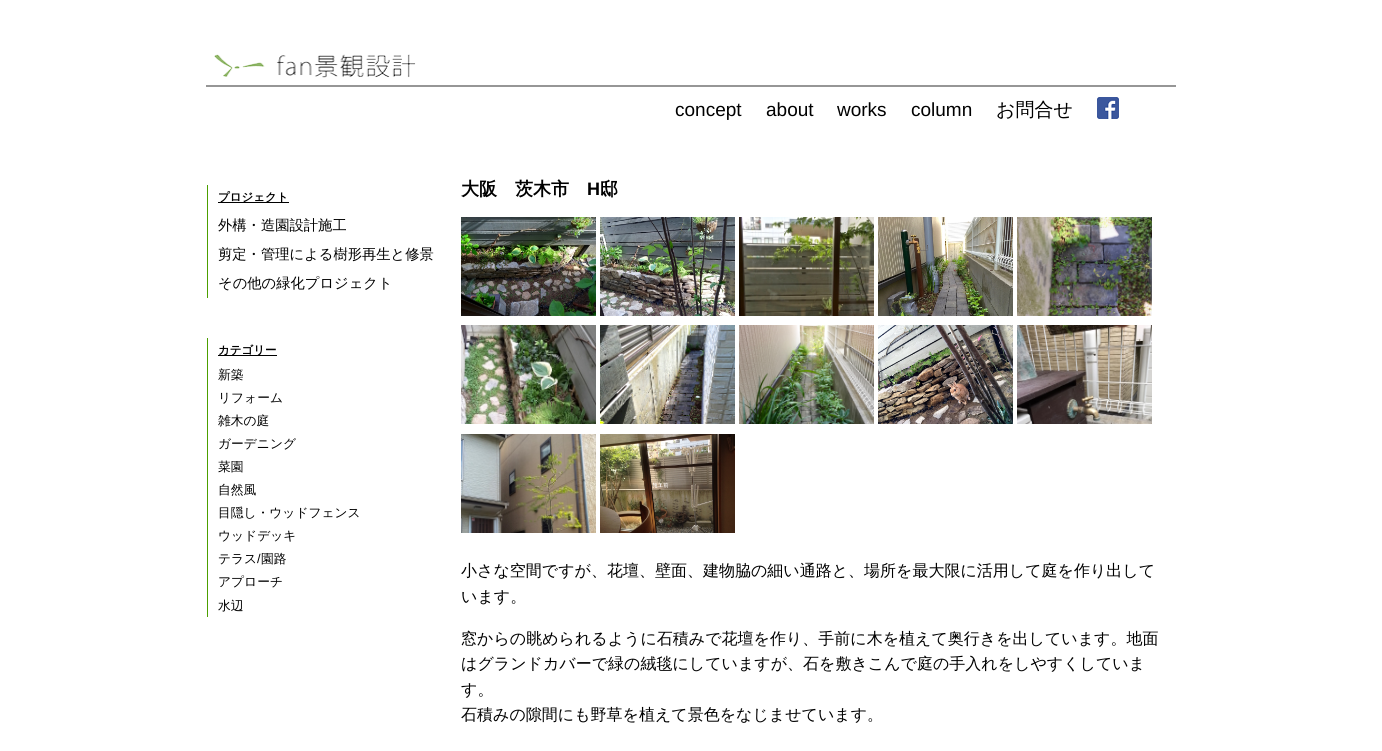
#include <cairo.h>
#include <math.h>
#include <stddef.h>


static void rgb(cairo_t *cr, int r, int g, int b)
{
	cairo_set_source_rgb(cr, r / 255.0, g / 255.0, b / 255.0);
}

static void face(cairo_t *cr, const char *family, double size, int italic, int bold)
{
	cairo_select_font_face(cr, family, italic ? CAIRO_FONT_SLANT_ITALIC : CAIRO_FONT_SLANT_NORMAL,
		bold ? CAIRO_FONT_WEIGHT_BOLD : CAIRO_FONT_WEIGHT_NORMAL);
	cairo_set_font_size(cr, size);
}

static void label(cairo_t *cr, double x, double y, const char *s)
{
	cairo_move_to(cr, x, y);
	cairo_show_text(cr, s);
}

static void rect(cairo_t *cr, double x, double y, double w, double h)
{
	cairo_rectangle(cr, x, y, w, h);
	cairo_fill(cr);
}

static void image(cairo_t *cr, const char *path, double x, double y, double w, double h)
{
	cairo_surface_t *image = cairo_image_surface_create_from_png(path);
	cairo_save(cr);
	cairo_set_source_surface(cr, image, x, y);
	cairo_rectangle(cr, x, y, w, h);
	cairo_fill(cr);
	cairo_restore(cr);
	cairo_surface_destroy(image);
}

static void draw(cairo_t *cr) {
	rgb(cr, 255, 255, 255);
	cairo_paint(cr);
	rgb(cr, 150, 150, 150);
	rect(cr, 206, 85, 970, 2);
	image(cr, "image0.png", 214, 54, 202, 24);
	face(cr, "Liberation Sans", 19, 0, 0);
	rgb(cr, 0, 0, 0);
	label(cr, 675, 116, "concept");
	label(cr, 766, 116, "about");
	label(cr, 837, 116, "works");
	label(cr, 911, 116, "column");
	face(cr, "WenQuanYi Zen Hei Medium", 19, 0, 0);
	label(cr, 996, 116, "お問合せ");
	image(cr, "image1.png", 1097, 97, 22, 22);
	rgb(cr, 76, 159, 0);
	rect(cr, 207, 185, 1, 113);
	rgb(cr, 0, 0, 0);
	rect(cr, 218, 202, 71, 1);
	face(cr, "WenQuanYi Zen Hei", 11.5, 0, 1);
	label(cr, 218, 201, "プロジェクト");
	face(cr, "WenQuanYi Zen Hei Medium", 14.3, 0, 0);
	label(cr, 218, 230, "外構・造園設計施工");
	label(cr, 218, 259, "剪定・管理による樹形再生と修景");
	label(cr, 218, 288, "その他の緑化プロジェクト");
	rgb(cr, 76, 159, 0);
	rect(cr, 207, 338, 1, 279);
	rgb(cr, 0, 0, 0);
	rect(cr, 218, 355, 59, 1);
	face(cr, "WenQuanYi Zen Hei", 11.5, 0, 1);
	label(cr, 218, 354, "カテゴリー");
	face(cr, "WenQuanYi Zen Hei Medium", 12.75, 0, 0);
	label(cr, 218, 379, "新築");
	label(cr, 218, 402, "リフォーム");
	label(cr, 218, 425, "雑木の庭");
	label(cr, 218, 448, "ガーデニング");
	label(cr, 218, 471, "菜園");
	label(cr, 218, 494, "自然風");
	label(cr, 218, 517, "目隠し・ウッドフェンス");
	label(cr, 218, 540, "ウッドデッキ");
	label(cr, 218, 563, "テラス 園路");
	face(cr, "Liberation Sans", 12.75, 0, 0);
	label(cr, 257, 563, "/");
	face(cr, "WenQuanYi Zen Hei Medium", 12.75, 0, 0);
	label(cr, 218, 586, "アプローチ");
	label(cr, 218, 610, "水辺");
	face(cr, "WenQuanYi Zen Hei", 18, 0, 1);
	label(cr, 461, 195, "大阪　茨木市");
	face(cr, "Liberation Sans", 18, 0, 1);
	label(cr, 587, 195, "H");
	face(cr, "WenQuanYi Zen Hei", 18, 0, 1);
	label(cr, 600, 195, "邸");
	image(cr, "image2.png", 461, 217, 135, 99);
	image(cr, "image3.png", 600, 217, 135, 99);
	image(cr, "image4.png", 739, 217, 135, 99);
	image(cr, "image5.png", 878, 217, 135, 99);
	image(cr, "image6.png", 1017, 217, 135, 99);
	image(cr, "image7.png", 461, 325, 135, 99);
	image(cr, "image8.png", 600, 325, 135, 99);
	image(cr, "image9.png", 739, 325, 135, 99);
	image(cr, "image10.png", 878, 325, 135, 99);
	image(cr, "image11.png", 1017, 325, 135, 99);
	image(cr, "image12.png", 461, 434, 135, 99);
	image(cr, "image13.png", 600, 434, 135, 99);
	face(cr, "WenQuanYi Zen Hei Medium", 16, 0, 0);
	label(cr, 461, 576, "小さな空間ですが、花壇、壁面、建物脇の細い通路と、場所を最大限に活用して庭を作り出して");
	label(cr, 461, 602, "います。");
	label(cr, 461, 644, "窓からの眺められるように石積みで花壇を作り、手前に木を植えて奥行きを出しています。地面");
	label(cr, 461, 669, "はグランドカバーで緑の絨毯にしていますが、石を敷きこんで庭の手入れをしやすくしていま");
	label(cr, 461, 695, "す。");
	label(cr, 461, 720, "石積みの隙間にも野草を植えて景色をなじませています。");
}

int main(void) {
	cairo_surface_t *surface = cairo_image_surface_create(CAIRO_FORMAT_RGB24, 1382, 751);
	cairo_t *cr = cairo_create(surface);
	cairo_font_options_t *options = cairo_font_options_create();
	cairo_font_options_set_hint_metrics(options, CAIRO_HINT_METRICS_OFF);
	cairo_font_options_set_hint_style(options, CAIRO_HINT_STYLE_NONE);
	cairo_set_font_options(cr, options);
	cairo_set_miter_limit(cr, 4);
	draw(cr);
	cairo_surface_write_to_png(surface, "render.png");
	cairo_font_options_destroy(options);
	cairo_destroy(cr);
	cairo_surface_destroy(surface);
	return 0;
}
